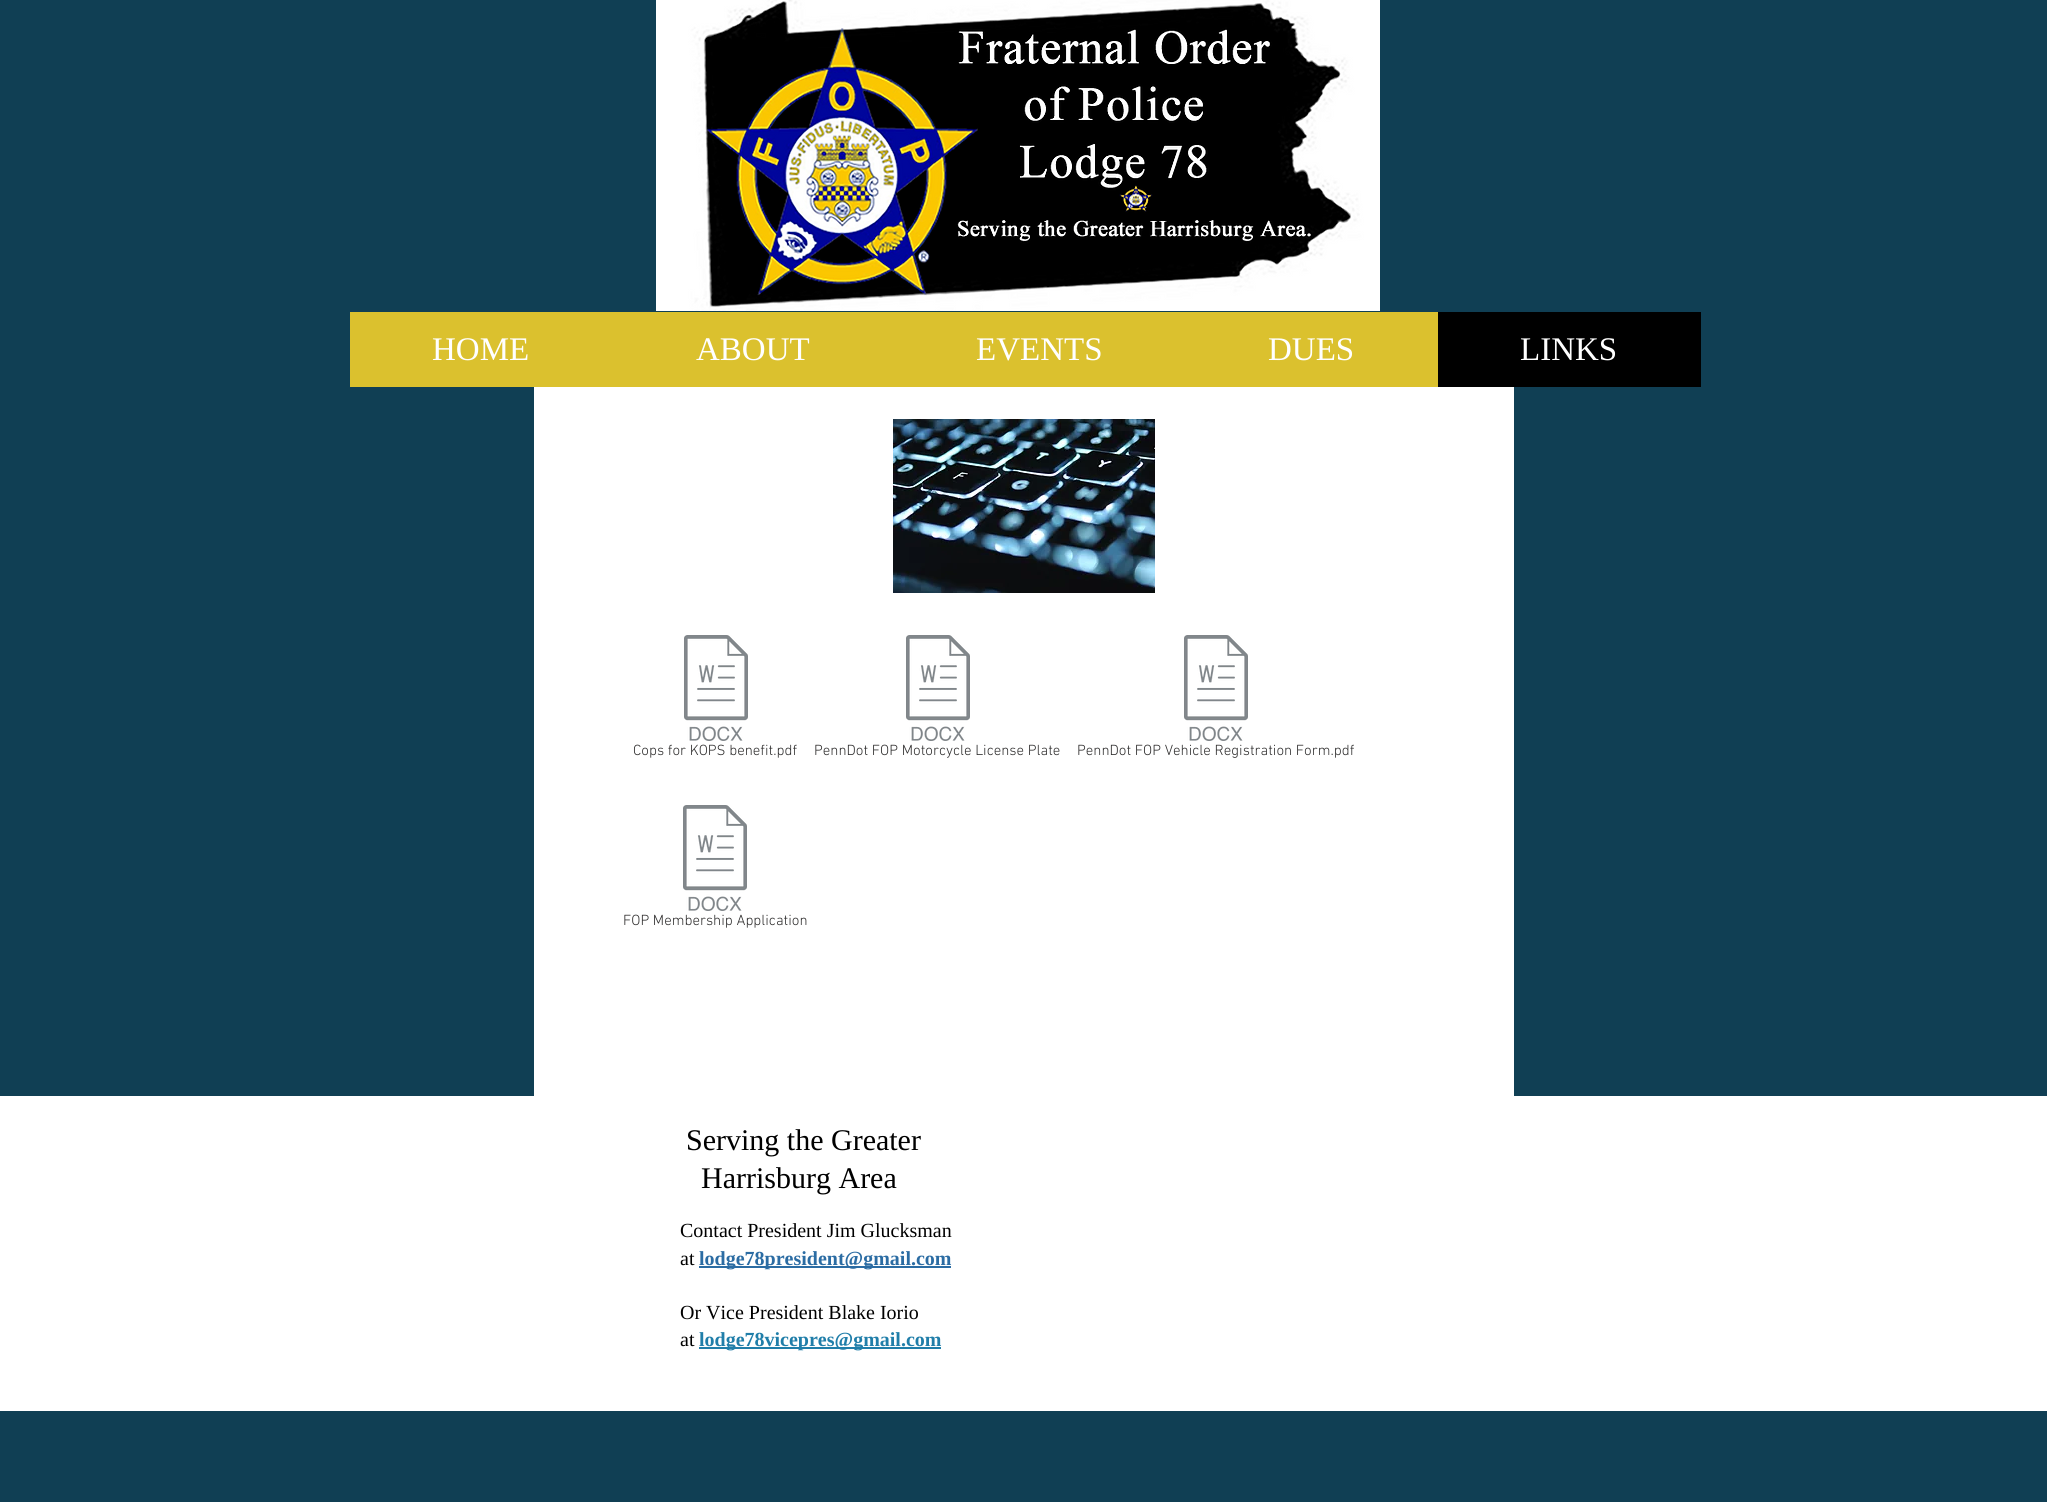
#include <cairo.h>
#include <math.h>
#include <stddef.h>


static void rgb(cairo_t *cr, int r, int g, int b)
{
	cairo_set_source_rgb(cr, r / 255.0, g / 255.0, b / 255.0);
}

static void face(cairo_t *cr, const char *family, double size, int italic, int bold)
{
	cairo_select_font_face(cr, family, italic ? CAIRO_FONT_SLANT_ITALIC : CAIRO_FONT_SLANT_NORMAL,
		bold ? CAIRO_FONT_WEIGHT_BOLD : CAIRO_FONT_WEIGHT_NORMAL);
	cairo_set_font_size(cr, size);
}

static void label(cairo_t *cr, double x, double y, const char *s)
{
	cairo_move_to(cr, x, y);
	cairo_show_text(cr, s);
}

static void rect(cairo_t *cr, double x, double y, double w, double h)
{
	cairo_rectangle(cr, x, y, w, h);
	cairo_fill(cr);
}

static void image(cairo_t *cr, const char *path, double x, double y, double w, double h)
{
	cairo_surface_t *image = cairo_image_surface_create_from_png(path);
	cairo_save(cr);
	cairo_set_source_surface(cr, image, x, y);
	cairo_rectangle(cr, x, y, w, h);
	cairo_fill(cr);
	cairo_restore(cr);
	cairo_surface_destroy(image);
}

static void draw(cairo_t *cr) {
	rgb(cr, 16, 63, 84);
	cairo_paint(cr);
	image(cr, "image0.png", 656, 0, 724, 311);
	rgb(cr, 219, 193, 46);
	rect(cr, 350, 312, 1088, 75);
	face(cr, "Liberation Serif", 33, 0, 0);
	rgb(cr, 255, 255, 255);
	label(cr, 432, 360, "HOME");
	label(cr, 696, 360, "ABOUT");
	label(cr, 976, 360, "EVENTS");
	label(cr, 1268, 360, "DUES");
	rgb(cr, 0, 0, 0);
	rect(cr, 1438, 312, 263, 75);
	rgb(cr, 255, 255, 255);
	label(cr, 1520, 360, "LINKS");
	rect(cr, 534, 387, 980, 709);
	image(cr, "image1.png", 893, 419, 262, 174);
	image(cr, "image2.png", 684, 635, 64, 106);
	face(cr, "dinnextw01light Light", 15, 0, 0);
	rgb(cr, 47, 46, 46);
	label(cr, 633, 755, "Cops for KOPS benefit.pdf");
	image(cr, "image2.png", 906, 635, 64, 106);
	label(cr, 814, 755, "PennDot FOP Motorcycle License Plate");
	image(cr, "image2.png", 1184, 635, 64, 106);
	label(cr, 1077, 755, "PennDot FOP Vehicle Registration Form.pdf");
	image(cr, "image2.png", 683, 805, 64, 106);
	label(cr, 623, 925, "FOP Membership Application");
	rgb(cr, 255, 255, 255);
	rect(cr, 0, 1096, 2047, 315);
	face(cr, "Liberation Serif", 30, 0, 0);
	rgb(cr, 0, 0, 0);
	label(cr, 686, 1150, "Serving the Greater");
	label(cr, 701, 1188, "Harrisburg Area");
	face(cr, "Liberation Serif", 20, 0, 0);
	label(cr, 680, 1237, "Contact President Jim Glucksman");
	label(cr, 680, 1265, "at");
	rgb(cr, 43, 108, 163);
	rect(cr, 699, 1266, 252, 2);
	face(cr, "Liberation Serif", 20, 0, 1);
	label(cr, 699, 1265, "lodge78president@gmail.com");
	face(cr, "Liberation Serif", 20, 0, 0);
	rgb(cr, 0, 0, 0);
	label(cr, 680, 1319, "Or Vice President Blake Iorio");
	label(cr, 680, 1346, "at");
	rgb(cr, 32, 126, 169);
	rect(cr, 699, 1347, 242, 2);
	face(cr, "Liberation Serif", 20, 0, 1);
	label(cr, 699, 1346, "lodge78vicepres@gmail.com");
}

int main(void) {
	cairo_surface_t *surface = cairo_image_surface_create(CAIRO_FORMAT_RGB24, 2047, 1502);
	cairo_t *cr = cairo_create(surface);
	cairo_font_options_t *options = cairo_font_options_create();
	cairo_font_options_set_hint_metrics(options, CAIRO_HINT_METRICS_OFF);
	cairo_font_options_set_hint_style(options, CAIRO_HINT_STYLE_NONE);
	cairo_set_font_options(cr, options);
	cairo_set_miter_limit(cr, 4);
	draw(cr);
	cairo_surface_write_to_png(surface, "render.png");
	cairo_font_options_destroy(options);
	cairo_destroy(cr);
	cairo_surface_destroy(surface);
	return 0;
}
